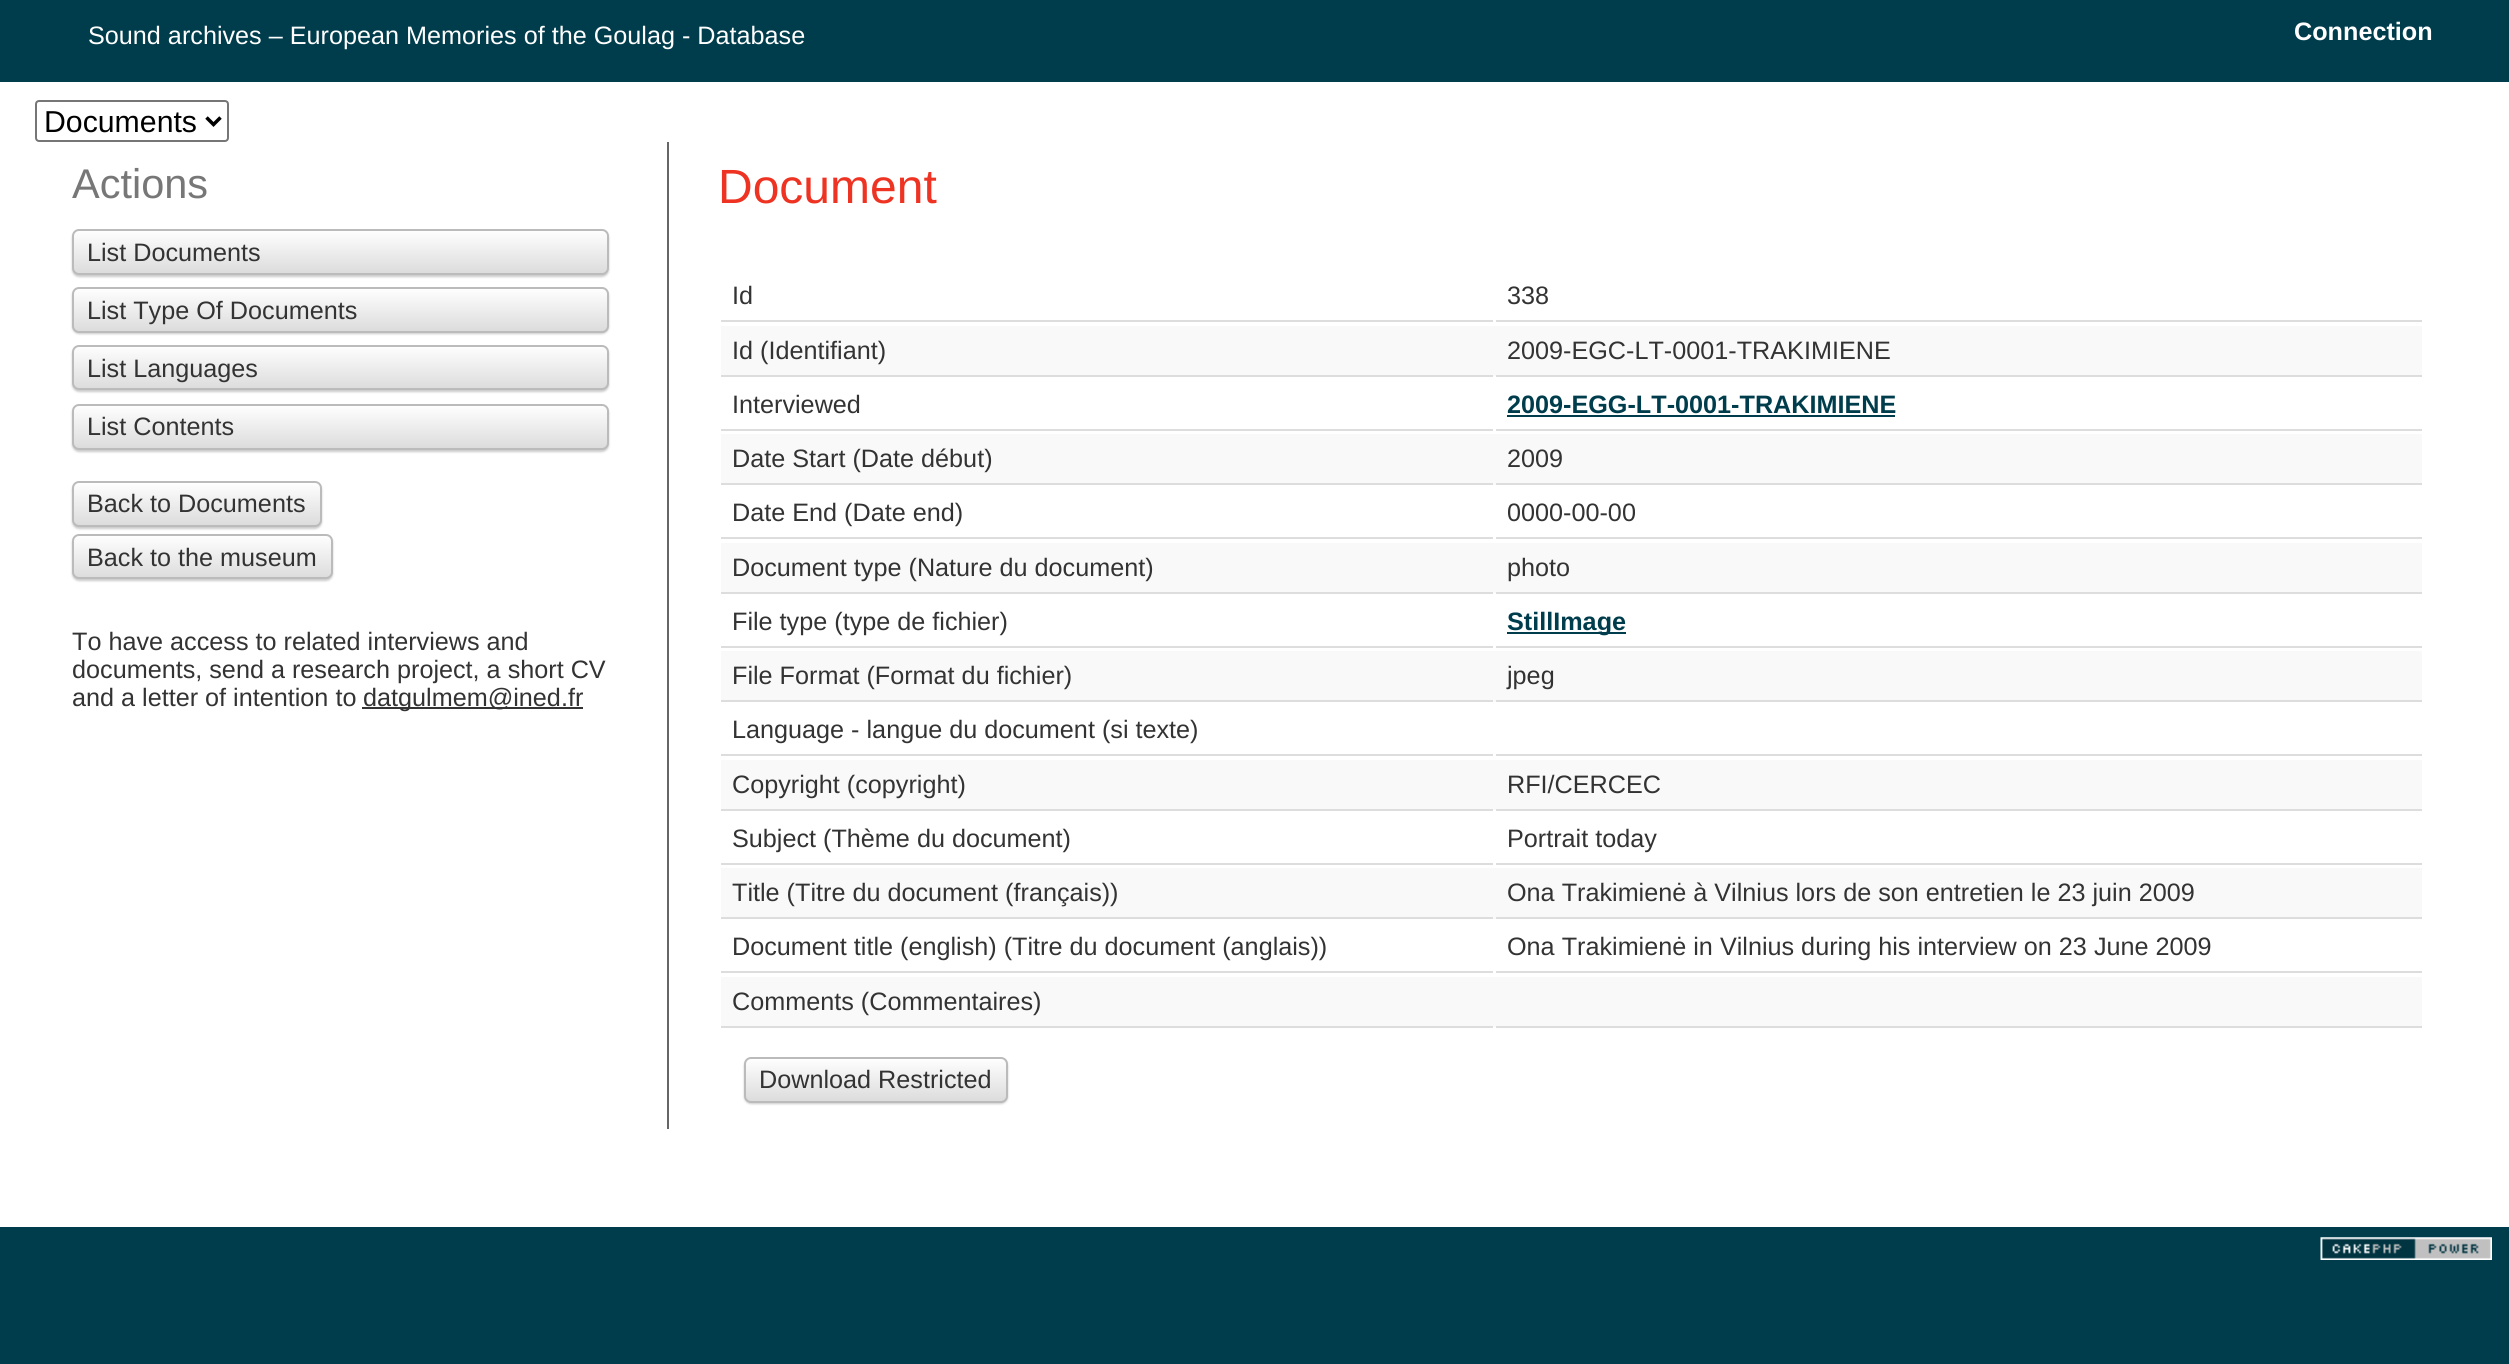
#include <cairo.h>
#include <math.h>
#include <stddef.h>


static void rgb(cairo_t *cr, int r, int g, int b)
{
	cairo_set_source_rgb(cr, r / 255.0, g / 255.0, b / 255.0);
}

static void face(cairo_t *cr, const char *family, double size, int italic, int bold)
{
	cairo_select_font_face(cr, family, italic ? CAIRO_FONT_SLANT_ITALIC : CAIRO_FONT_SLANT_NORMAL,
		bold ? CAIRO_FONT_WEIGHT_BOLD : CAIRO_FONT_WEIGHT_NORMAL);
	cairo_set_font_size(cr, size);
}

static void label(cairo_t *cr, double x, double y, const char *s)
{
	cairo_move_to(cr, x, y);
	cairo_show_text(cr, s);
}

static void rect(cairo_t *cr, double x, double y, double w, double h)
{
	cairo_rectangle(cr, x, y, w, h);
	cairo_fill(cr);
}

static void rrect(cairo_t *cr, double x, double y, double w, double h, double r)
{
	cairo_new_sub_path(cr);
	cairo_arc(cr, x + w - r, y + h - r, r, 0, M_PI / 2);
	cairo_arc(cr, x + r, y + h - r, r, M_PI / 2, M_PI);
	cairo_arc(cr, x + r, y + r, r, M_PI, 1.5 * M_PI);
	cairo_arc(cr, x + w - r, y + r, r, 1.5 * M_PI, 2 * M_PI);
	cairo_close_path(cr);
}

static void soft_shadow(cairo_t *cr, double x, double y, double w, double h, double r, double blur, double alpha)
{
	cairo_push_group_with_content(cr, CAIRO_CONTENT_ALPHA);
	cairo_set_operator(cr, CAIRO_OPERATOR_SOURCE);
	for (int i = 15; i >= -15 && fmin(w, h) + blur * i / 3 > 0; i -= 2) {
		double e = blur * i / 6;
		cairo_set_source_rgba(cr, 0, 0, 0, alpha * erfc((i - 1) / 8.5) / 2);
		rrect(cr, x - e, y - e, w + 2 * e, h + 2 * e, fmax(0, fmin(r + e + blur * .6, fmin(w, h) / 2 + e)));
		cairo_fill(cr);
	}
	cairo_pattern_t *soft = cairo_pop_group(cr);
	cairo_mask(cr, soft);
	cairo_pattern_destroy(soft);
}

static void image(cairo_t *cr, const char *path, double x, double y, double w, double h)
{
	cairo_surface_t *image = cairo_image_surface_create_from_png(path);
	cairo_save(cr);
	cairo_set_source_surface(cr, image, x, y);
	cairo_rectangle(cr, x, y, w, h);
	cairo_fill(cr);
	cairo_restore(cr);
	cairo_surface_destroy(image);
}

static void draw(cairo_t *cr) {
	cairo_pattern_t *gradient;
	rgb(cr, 0, 61, 76);
	cairo_paint(cr);
	face(cr, "Liberation Sans", 25.2, 0, 0);
	rgb(cr, 255, 255, 255);
	label(cr, 88, 44, "Sound archives – European Memories of the Goulag - Database");
	face(cr, "Liberation Sans", 25.2, 0, 1);
	label(cr, 2294, 40, "Connection");
	rect(cr, 0, 82, 2509, 1145);
	rrect(cr, 36, 101, 192, 40, 3);
	rgb(cr, 118, 118, 118);
	cairo_stroke(cr);
	cairo_new_path(cr);
	cairo_move_to(cr, 206.5, 117.5);
	cairo_line_to(cr, 213.5, 124.5);
	cairo_line_to(cr, 220.5, 117.5);
	rgb(cr, 0, 0, 0);
	cairo_set_line_width(cr, 3.5);
	cairo_stroke(cr);
	face(cr, "Liberation Sans", 30.25, 0, 0);
	label(cr, 44, 132, "Documents");
	face(cr, "Liberation Sans", 41.5, 0, 0);
	rgb(cr, 119, 119, 119);
	label(cr, 72, 198, "Actions");
	rgb(cr, 0, 0, 0);
	soft_shadow(cr, 72, 231, 537, 46, 7, 1, 0.2);
	cairo_save(cr);
	rrect(cr, 72, 229, 537, 46, 7);
	cairo_clip(cr);
	gradient = cairo_pattern_create_linear(340, 231, 340, 273);
	cairo_pattern_add_color_stop_rgba(gradient, 0, 0.996, 0.996, 0.996, 1);
	cairo_pattern_add_color_stop_rgba(gradient, 1, 0.863, 0.863, 0.863, 1);
	cairo_set_source(cr, gradient);
	cairo_pattern_destroy(gradient);
	rect(cr, 72, 231, 537, 42);
	cairo_restore(cr);
	rrect(cr, 73, 230, 535, 44, 6);
	rgb(cr, 187, 187, 187);
	cairo_set_line_width(cr, 2);
	cairo_stroke(cr);
	face(cr, "Liberation Sans", 25.2, 0, 0);
	rgb(cr, 51, 51, 51);
	label(cr, 87, 261, "List Documents");
	rgb(cr, 0, 0, 0);
	soft_shadow(cr, 72, 289, 537, 45, 7, 1, 0.2);
	cairo_save(cr);
	rrect(cr, 72, 287, 537, 46, 7);
	cairo_clip(cr);
	gradient = cairo_pattern_create_linear(340, 289, 340, 331);
	cairo_pattern_add_color_stop_rgba(gradient, 0, 0.996, 0.996, 0.996, 1);
	cairo_pattern_add_color_stop_rgba(gradient, 1, 0.863, 0.863, 0.863, 1);
	cairo_set_source(cr, gradient);
	cairo_pattern_destroy(gradient);
	rect(cr, 72, 289, 537, 42);
	cairo_restore(cr);
	rrect(cr, 73, 288, 535, 44, 6);
	rgb(cr, 187, 187, 187);
	cairo_stroke(cr);
	rgb(cr, 51, 51, 51);
	label(cr, 87, 319, "List Type Of Documents");
	rgb(cr, 0, 0, 0);
	soft_shadow(cr, 72, 347, 537, 45, 7, 1, 0.2);
	cairo_save(cr);
	rrect(cr, 72, 345, 537, 45, 7);
	cairo_clip(cr);
	gradient = cairo_pattern_create_linear(340, 346, 340, 389);
	cairo_pattern_add_color_stop_rgba(gradient, 0, 0.996, 0.996, 0.996, 1);
	cairo_pattern_add_color_stop_rgba(gradient, 1, 0.863, 0.863, 0.863, 1);
	cairo_set_source(cr, gradient);
	cairo_pattern_destroy(gradient);
	rect(cr, 72, 347, 537, 42);
	cairo_restore(cr);
	rrect(cr, 73, 346, 535, 43, 6);
	rgb(cr, 187, 187, 187);
	cairo_stroke(cr);
	rgb(cr, 51, 51, 51);
	label(cr, 87, 377, "List Languages");
	rgb(cr, 0, 0, 0);
	soft_shadow(cr, 72, 406, 537, 46, 7, 1, 0.2);
	cairo_save(cr);
	rrect(cr, 72, 404, 537, 46, 7);
	cairo_clip(cr);
	gradient = cairo_pattern_create_linear(340, 406, 340, 448);
	cairo_pattern_add_color_stop_rgba(gradient, 0, 0.996, 0.996, 0.996, 1);
	cairo_pattern_add_color_stop_rgba(gradient, 1, 0.863, 0.863, 0.863, 1);
	cairo_set_source(cr, gradient);
	cairo_pattern_destroy(gradient);
	rect(cr, 72, 406, 537, 42);
	cairo_restore(cr);
	rrect(cr, 73, 405, 535, 44, 6);
	rgb(cr, 187, 187, 187);
	cairo_stroke(cr);
	rgb(cr, 51, 51, 51);
	label(cr, 87, 435, "List Contents");
	rgb(cr, 0, 0, 0);
	soft_shadow(cr, 72, 483, 250, 46, 7, 1, 0.2);
	cairo_save(cr);
	rrect(cr, 72, 481, 250, 46, 7);
	cairo_clip(cr);
	gradient = cairo_pattern_create_linear(197, 483, 197, 525);
	cairo_pattern_add_color_stop_rgba(gradient, 0, 0.996, 0.996, 0.996, 1);
	cairo_pattern_add_color_stop_rgba(gradient, 1, 0.863, 0.863, 0.863, 1);
	cairo_set_source(cr, gradient);
	cairo_pattern_destroy(gradient);
	rect(cr, 72, 483, 250, 42);
	cairo_restore(cr);
	rrect(cr, 73, 482, 248, 44, 6);
	rgb(cr, 187, 187, 187);
	cairo_stroke(cr);
	rgb(cr, 51, 51, 51);
	label(cr, 87, 512, "Back to Documents");
	rgb(cr, 0, 0, 0);
	soft_shadow(cr, 72, 536, 261, 45, 7, 1, 0.2);
	cairo_save(cr);
	rrect(cr, 72, 534, 261, 45, 7);
	cairo_clip(cr);
	gradient = cairo_pattern_create_linear(202, 536, 202, 578);
	cairo_pattern_add_color_stop_rgba(gradient, 0, 0.996, 0.996, 0.996, 1);
	cairo_pattern_add_color_stop_rgba(gradient, 1, 0.863, 0.863, 0.863, 1);
	cairo_set_source(cr, gradient);
	cairo_pattern_destroy(gradient);
	rect(cr, 72, 536, 261, 42);
	cairo_restore(cr);
	rrect(cr, 73, 535, 259, 43, 6);
	rgb(cr, 187, 187, 187);
	cairo_stroke(cr);
	rgb(cr, 51, 51, 51);
	label(cr, 87, 566, "Back to the museum");
	label(cr, 72, 650, "To have access to related interviews and");
	label(cr, 72, 678, "documents, send a research project, a short CV");
	label(cr, 72, 706, "and a letter of intention to");
	rect(cr, 362, 707, 221, 2);
	label(cr, 363, 706, "datgulmem@ined.fr");
	rgb(cr, 102, 102, 102);
	rect(cr, 667, 142, 2, 987);
	face(cr, "Liberation Sans", 48, 0, 0);
	rgb(cr, 238, 51, 34);
	label(cr, 718, 203, "Document");
	rgb(cr, 221, 221, 221);
	rect(cr, 721, 320, 772, 2);
	face(cr, "Liberation Sans", 25.2, 0, 0);
	rgb(cr, 51, 51, 51);
	label(cr, 732, 304, "Id");
	rgb(cr, 221, 221, 221);
	rect(cr, 1496, 320, 926, 2);
	rgb(cr, 51, 51, 51);
	label(cr, 1507, 304, "338");
	rgb(cr, 249, 249, 249);
	rect(cr, 721, 326, 1701, 50);
	rgb(cr, 221, 221, 221);
	rect(cr, 721, 375, 772, 2);
	rgb(cr, 51, 51, 51);
	label(cr, 732, 359, "Id (Identifiant)");
	rgb(cr, 221, 221, 221);
	rect(cr, 1496, 375, 926, 2);
	rgb(cr, 51, 51, 51);
	label(cr, 1507, 359, "2009-EGC-LT-0001-TRAKIMIENE");
	rgb(cr, 221, 221, 221);
	rect(cr, 721, 429, 772, 2);
	rgb(cr, 51, 51, 51);
	label(cr, 732, 413, "Interviewed");
	rgb(cr, 221, 221, 221);
	rect(cr, 1496, 429, 926, 2);
	face(cr, "Liberation Sans", 25.2, 0, 1);
	rgb(cr, 0, 61, 76);
	label(cr, 1507, 413, "2009-EGG-LT-0001-TRAKIMIENE");
	rect(cr, 1507, 415, 388, 2);
	rgb(cr, 249, 249, 249);
	rect(cr, 721, 434, 1701, 51);
	rgb(cr, 221, 221, 221);
	rect(cr, 721, 483, 772, 2);
	face(cr, "Liberation Sans", 25.2, 0, 0);
	rgb(cr, 51, 51, 51);
	label(cr, 732, 467, "Date Start (Date début)");
	rgb(cr, 221, 221, 221);
	rect(cr, 1496, 483, 926, 2);
	rgb(cr, 51, 51, 51);
	label(cr, 1507, 467, "2009");
	rgb(cr, 221, 221, 221);
	rect(cr, 721, 537, 772, 2);
	rgb(cr, 51, 51, 51);
	label(cr, 732, 521, "Date End (Date end)");
	rgb(cr, 221, 221, 221);
	rect(cr, 1496, 537, 926, 2);
	rgb(cr, 51, 51, 51);
	label(cr, 1507, 521, "0000-00-00");
	rgb(cr, 249, 249, 249);
	rect(cr, 721, 543, 1701, 50);
	rgb(cr, 221, 221, 221);
	rect(cr, 721, 592, 772, 2);
	rgb(cr, 51, 51, 51);
	label(cr, 732, 576, "Document type (Nature du document)");
	rgb(cr, 221, 221, 221);
	rect(cr, 1496, 592, 926, 2);
	rgb(cr, 51, 51, 51);
	label(cr, 1507, 576, "photo");
	rgb(cr, 221, 221, 221);
	rect(cr, 721, 646, 772, 2);
	rgb(cr, 51, 51, 51);
	label(cr, 732, 630, "File type (type de fichier)");
	rgb(cr, 221, 221, 221);
	rect(cr, 1496, 646, 926, 2);
	rgb(cr, 0, 61, 76);
	rect(cr, 1507, 632, 119, 2);
	face(cr, "Liberation Sans", 25.2, 0, 1);
	label(cr, 1507, 630, "StillImage");
	rgb(cr, 249, 249, 249);
	rect(cr, 721, 651, 1701, 51);
	rgb(cr, 221, 221, 221);
	rect(cr, 721, 700, 772, 2);
	face(cr, "Liberation Sans", 25.2, 0, 0);
	rgb(cr, 51, 51, 51);
	label(cr, 732, 684, "File Format (Format du fichier)");
	rgb(cr, 221, 221, 221);
	rect(cr, 1496, 700, 926, 2);
	rgb(cr, 51, 51, 51);
	label(cr, 1507, 684, "jpeg");
	rgb(cr, 221, 221, 221);
	rect(cr, 721, 754, 772, 2);
	rgb(cr, 51, 51, 51);
	label(cr, 732, 738, "Language - langue du document (si texte)");
	rgb(cr, 221, 221, 221);
	rect(cr, 1496, 754, 926, 2);
	rgb(cr, 249, 249, 249);
	rect(cr, 721, 760, 1701, 50);
	rgb(cr, 221, 221, 221);
	rect(cr, 721, 809, 772, 2);
	rgb(cr, 51, 51, 51);
	label(cr, 732, 793, "Copyright (copyright)");
	rgb(cr, 221, 221, 221);
	rect(cr, 1496, 809, 926, 2);
	rgb(cr, 51, 51, 51);
	label(cr, 1507, 793, "RFI/CERCEC");
	rgb(cr, 221, 221, 221);
	rect(cr, 721, 863, 772, 2);
	rgb(cr, 51, 51, 51);
	label(cr, 732, 847, "Subject (Thème du document)");
	rgb(cr, 221, 221, 221);
	rect(cr, 1496, 863, 926, 2);
	rgb(cr, 51, 51, 51);
	label(cr, 1507, 847, "Portrait today");
	rgb(cr, 249, 249, 249);
	rect(cr, 721, 868, 1701, 51);
	rgb(cr, 221, 221, 221);
	rect(cr, 721, 917, 772, 2);
	rgb(cr, 51, 51, 51);
	label(cr, 732, 901, "Title (Titre du document (français))");
	rgb(cr, 221, 221, 221);
	rect(cr, 1496, 917, 926, 2);
	rgb(cr, 51, 51, 51);
	label(cr, 1507, 901, "Ona Trakimienė à Vilnius lors de son entretien le 23 juin 2009");
	rgb(cr, 221, 221, 221);
	rect(cr, 721, 971, 772, 2);
	rgb(cr, 51, 51, 51);
	label(cr, 732, 955, "Document title (english) (Titre du document (anglais))");
	rgb(cr, 221, 221, 221);
	rect(cr, 1496, 971, 926, 2);
	rgb(cr, 51, 51, 51);
	label(cr, 1507, 955, "Ona Trakimienė in Vilnius during his interview on 23 June 2009");
	rgb(cr, 249, 249, 249);
	rect(cr, 721, 977, 1701, 50);
	rgb(cr, 221, 221, 221);
	rect(cr, 721, 1026, 772, 2);
	rgb(cr, 51, 51, 51);
	label(cr, 732, 1010, "Comments (Commentaires)");
	rgb(cr, 221, 221, 221);
	rect(cr, 1496, 1026, 926, 2);
	rgb(cr, 0, 0, 0);
	soft_shadow(cr, 744, 1059, 264, 45, 7, 1, 0.2);
	cairo_save(cr);
	rrect(cr, 744, 1057, 264, 46, 7);
	cairo_clip(cr);
	gradient = cairo_pattern_create_linear(876, 1059, 876, 1101);
	cairo_pattern_add_color_stop_rgba(gradient, 0, 0.996, 0.996, 0.996, 1);
	cairo_pattern_add_color_stop_rgba(gradient, 1, 0.863, 0.863, 0.863, 1);
	cairo_set_source(cr, gradient);
	cairo_pattern_destroy(gradient);
	rect(cr, 744, 1059, 264, 42);
	cairo_restore(cr);
	rrect(cr, 745, 1058, 262, 44, 6);
	rgb(cr, 187, 187, 187);
	cairo_stroke(cr);
	rgb(cr, 51, 51, 51);
	label(cr, 759, 1088, "Download Restricted");
	image(cr, "image0.png", 2320, 1237, 172, 23);
}

int main(void) {
	cairo_surface_t *surface = cairo_image_surface_create(CAIRO_FORMAT_RGB24, 2509, 1364);
	cairo_t *cr = cairo_create(surface);
	cairo_font_options_t *options = cairo_font_options_create();
	cairo_font_options_set_hint_metrics(options, CAIRO_HINT_METRICS_OFF);
	cairo_font_options_set_hint_style(options, CAIRO_HINT_STYLE_NONE);
	cairo_set_font_options(cr, options);
	cairo_set_miter_limit(cr, 4);
	draw(cr);
	cairo_surface_write_to_png(surface, "render.png");
	cairo_font_options_destroy(options);
	cairo_destroy(cr);
	cairo_surface_destroy(surface);
	return 0;
}
